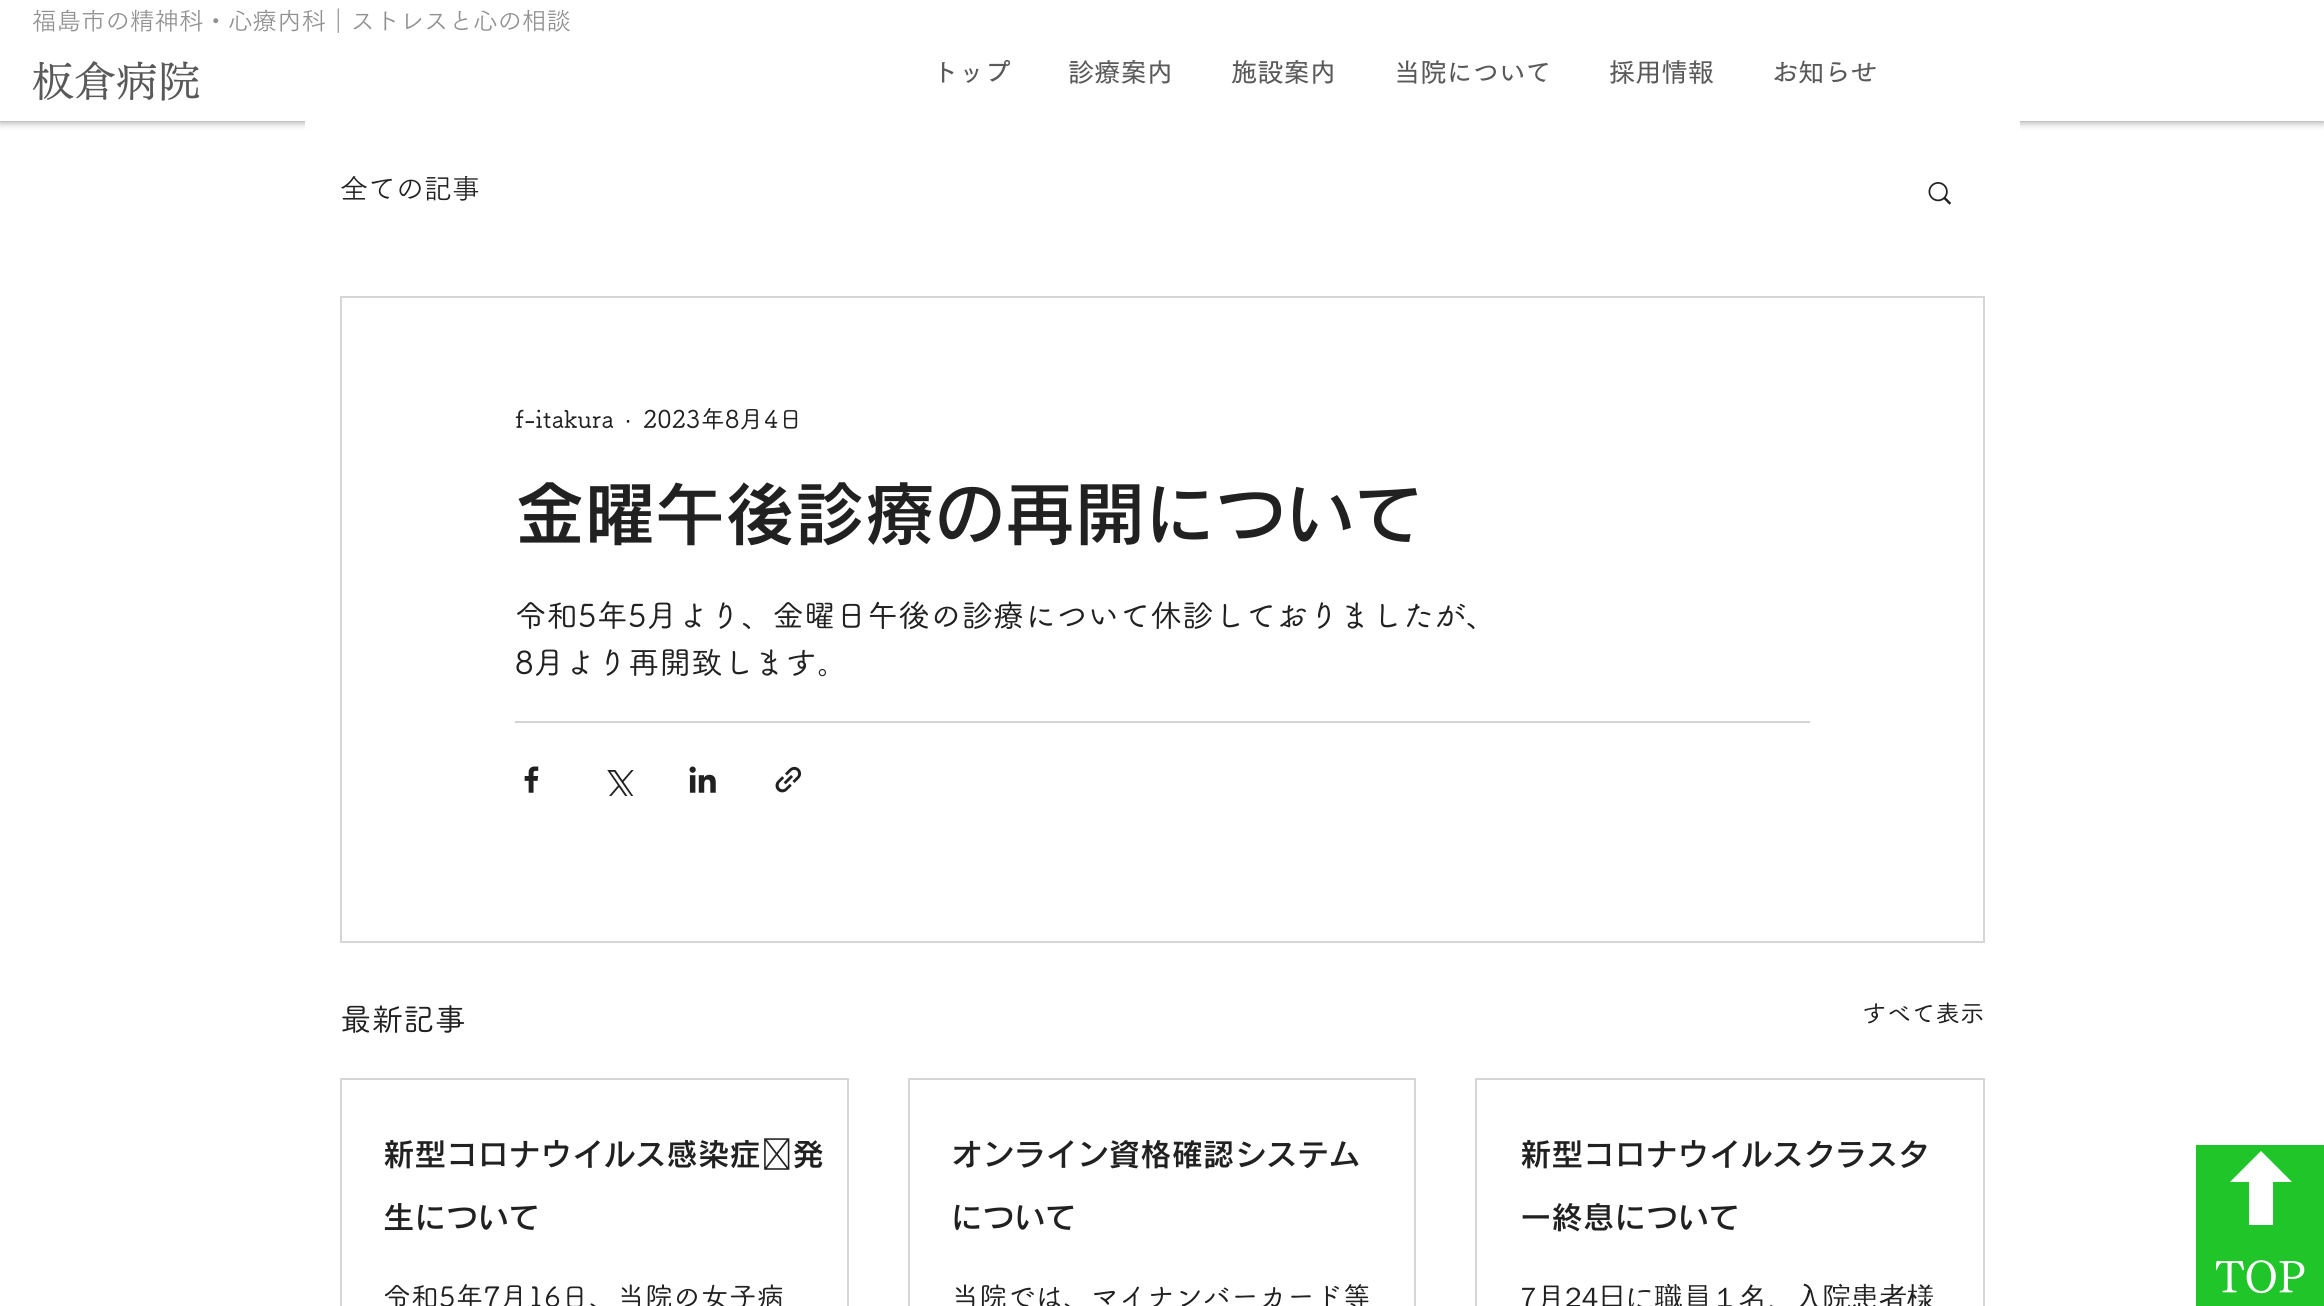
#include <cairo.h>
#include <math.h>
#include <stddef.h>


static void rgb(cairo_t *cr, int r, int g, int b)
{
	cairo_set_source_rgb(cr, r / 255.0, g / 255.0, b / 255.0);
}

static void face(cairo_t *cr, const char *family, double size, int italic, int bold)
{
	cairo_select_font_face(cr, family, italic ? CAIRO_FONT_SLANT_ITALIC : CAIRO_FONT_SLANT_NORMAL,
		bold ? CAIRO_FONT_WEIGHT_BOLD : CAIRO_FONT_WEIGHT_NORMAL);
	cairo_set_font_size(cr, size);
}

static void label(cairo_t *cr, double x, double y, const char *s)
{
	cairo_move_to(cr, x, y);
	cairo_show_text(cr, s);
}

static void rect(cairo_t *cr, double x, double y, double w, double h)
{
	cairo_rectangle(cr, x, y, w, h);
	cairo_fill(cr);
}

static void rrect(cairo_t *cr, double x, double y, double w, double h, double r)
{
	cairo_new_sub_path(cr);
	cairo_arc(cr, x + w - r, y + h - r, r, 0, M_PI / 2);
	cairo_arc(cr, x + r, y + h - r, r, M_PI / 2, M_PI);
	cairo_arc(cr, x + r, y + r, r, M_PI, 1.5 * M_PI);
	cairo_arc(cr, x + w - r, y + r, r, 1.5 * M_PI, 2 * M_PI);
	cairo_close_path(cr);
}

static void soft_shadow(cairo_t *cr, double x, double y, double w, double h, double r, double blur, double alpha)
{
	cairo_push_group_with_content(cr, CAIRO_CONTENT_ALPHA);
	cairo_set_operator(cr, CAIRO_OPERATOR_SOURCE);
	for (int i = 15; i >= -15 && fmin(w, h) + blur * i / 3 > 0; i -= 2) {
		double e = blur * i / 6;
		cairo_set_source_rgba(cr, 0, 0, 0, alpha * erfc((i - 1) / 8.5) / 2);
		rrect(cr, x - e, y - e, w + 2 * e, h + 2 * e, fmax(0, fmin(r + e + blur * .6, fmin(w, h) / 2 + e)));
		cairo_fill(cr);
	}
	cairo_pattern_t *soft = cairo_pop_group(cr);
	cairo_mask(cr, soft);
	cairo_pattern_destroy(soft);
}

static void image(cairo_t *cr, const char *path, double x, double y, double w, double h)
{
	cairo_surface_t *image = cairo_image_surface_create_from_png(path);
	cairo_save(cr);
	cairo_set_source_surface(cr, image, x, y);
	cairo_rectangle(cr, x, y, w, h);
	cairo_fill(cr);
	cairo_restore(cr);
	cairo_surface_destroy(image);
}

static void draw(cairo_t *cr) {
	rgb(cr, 255, 255, 255);
	cairo_paint(cr);
	rgb(cr, 0, 0, 0);
	soft_shadow(cr, 0, 0, 2324, 121, 0, 4.5, 0.5);
	rgb(cr, 255, 255, 255);
	rect(cr, 0, 0, 2324, 121);
	face(cr, "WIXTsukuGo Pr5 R", 24.5, 0, 0);
	rgb(cr, 144, 144, 144);
	label(cr, 32, 30, "福島市の精神科・心療内科｜ストレスと心の相談");
	face(cr, "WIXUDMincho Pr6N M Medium", 42, 0, 0);
	rgb(cr, 89, 89, 89);
	label(cr, 32, 97, "板倉病院");
	face(cr, "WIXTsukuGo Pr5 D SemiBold", 26.25, 0, 0);
	label(cr, 932, 82, "トップ");
	label(cr, 1068, 82, "診療案内");
	label(cr, 1231, 82, "施設案内");
	label(cr, 1394, 82, "当院について");
	label(cr, 1609, 82, "採用情報");
	label(cr, 1772, 82, "お知らせ");
	rgb(cr, 255, 255, 255);
	rect(cr, 305, 121, 1715, 9);
	face(cr, "WIXTsukuGo Pr5 R", 28, 0, 0);
	rgb(cr, 33, 33, 33);
	label(cr, 340, 199, "全ての記事");
	image(cr, "image0.png", 1928, 182, 23, 23);
	cairo_rectangle(cr, 341, 297, 1643, 645);
	rgb(cr, 214, 214, 214);
	cairo_stroke(cr);
	face(cr, "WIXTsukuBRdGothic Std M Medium", 24.5, 0, 0);
	rgb(cr, 33, 33, 33);
	label(cr, 515, 428, "f-itakura");
	face(cr, "Liberation Sans", 24.5, 0, 0);
	label(cr, 624, 428, "·");
	face(cr, "WIXTsukuBRdGothic Std M Medium", 24.5, 0, 0);
	label(cr, 643, 428, "2023年8月4日");
	face(cr, "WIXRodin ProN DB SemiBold", 70, 0, 0);
	label(cr, 515, 540, "金曜午後診療の再開について");
	face(cr, "WIXTsukuBRdGothic Std M Medium", 31.5, 0, 0);
	label(cr, 515, 627, "令和5年5月より、金曜日午後の診療について休診しておりましたが、");
	label(cr, 515, 674, "8月より再開致します。");
	rgb(cr, 211, 211, 211);
	rect(cr, 515, 721, 1295, 2);
	image(cr, "image1.png", 524, 766, 15, 27);
	image(cr, "image2.png", 607, 770, 27, 26);
	image(cr, "image3.png", 689, 766, 27, 27);
	image(cr, "image4.png", 775, 766, 27, 27);
	rgb(cr, 33, 33, 33);
	label(cr, 340, 1031, "最新記事");
	face(cr, "WIXTsukuBRdGothic Std M Medium", 24.5, 0, 0);
	label(cr, 1862, 1022, "すべて表示");
	cairo_rectangle(cr, 341, 1079, 507, 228);
	rgb(cr, 214, 214, 214);
	cairo_stroke(cr);
	face(cr, "WIXRodin ProN DB SemiBold", 31.5, 0, 0);
	rgb(cr, 33, 33, 33);
	label(cr, 383, 1166, "新型コロナウイルス感染症 発");
	label(cr, 383, 1229, "生について");
	face(cr, "WIXTsukuBRdGothic Std M Medium", 28, 0, 0);
	label(cr, 383, 1307, "令和5年7月16日、当院の女子病");
	cairo_rectangle(cr, 909, 1079, 506, 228);
	rgb(cr, 214, 214, 214);
	cairo_stroke(cr);
	face(cr, "WIXRodin ProN DB SemiBold", 31.5, 0, 0);
	rgb(cr, 33, 33, 33);
	label(cr, 951, 1166, "オンライン資格確認システム");
	label(cr, 951, 1229, "について");
	face(cr, "WIXTsukuBRdGothic Std M Medium", 28, 0, 0);
	label(cr, 951, 1307, "当院では、マイナンバーカード等");
	cairo_rectangle(cr, 1476, 1079, 508, 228);
	rgb(cr, 214, 214, 214);
	cairo_stroke(cr);
	face(cr, "WIXRodin ProN DB SemiBold", 31.5, 0, 0);
	rgb(cr, 33, 33, 33);
	label(cr, 1520, 1166, "新型コロナウイルスクラスタ");
	label(cr, 1520, 1229, "ー終息について");
	face(cr, "WenQuanYi Zen Hei Medium", 28, 0, 0);
	label(cr, 1520, 1307, "7月24日に職員１名、入院患者様");
	rgb(cr, 32, 197, 41);
	rect(cr, 2196, 1145, 128, 161);
	rgb(cr, 255, 255, 255);
	cairo_new_path(cr);
	cairo_move_to(cr, 2292, 1182);
	cairo_line_to(cr, 2261, 1151);
	cairo_line_to(cr, 2230, 1182);
	cairo_line_to(cr, 2249, 1182);
	cairo_line_to(cr, 2249, 1225);
	cairo_line_to(cr, 2273, 1225);
	cairo_line_to(cr, 2273, 1182);
	cairo_close_path(cr);
	cairo_fill(cr);
	cairo_save(cr);
	cairo_rectangle(cr, 2216, 1236, 89, 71);
	cairo_clip(cr);
	face(cr, "WIXUDMincho Pr6N M Medium", 42, 0, 0);
	label(cr, 2215, 1293, "TOP");
	cairo_restore(cr);
}

int main(void) {
	cairo_surface_t *surface = cairo_image_surface_create(CAIRO_FORMAT_RGB24, 2324, 1306);
	cairo_t *cr = cairo_create(surface);
	cairo_font_options_t *options = cairo_font_options_create();
	cairo_font_options_set_hint_metrics(options, CAIRO_HINT_METRICS_OFF);
	cairo_font_options_set_hint_style(options, CAIRO_HINT_STYLE_NONE);
	cairo_set_font_options(cr, options);
	cairo_set_miter_limit(cr, 4);
	draw(cr);
	cairo_surface_write_to_png(surface, "render.png");
	cairo_font_options_destroy(options);
	cairo_destroy(cr);
	cairo_surface_destroy(surface);
	return 0;
}
